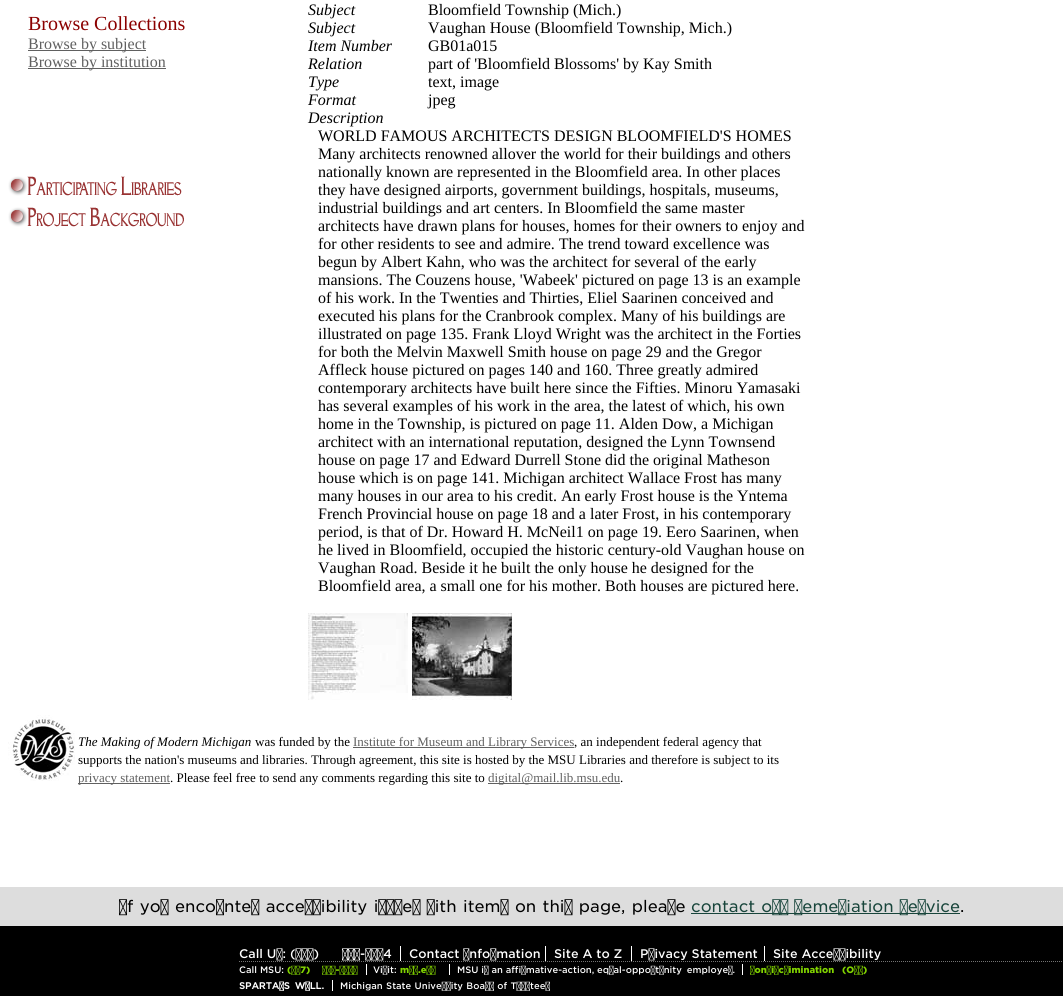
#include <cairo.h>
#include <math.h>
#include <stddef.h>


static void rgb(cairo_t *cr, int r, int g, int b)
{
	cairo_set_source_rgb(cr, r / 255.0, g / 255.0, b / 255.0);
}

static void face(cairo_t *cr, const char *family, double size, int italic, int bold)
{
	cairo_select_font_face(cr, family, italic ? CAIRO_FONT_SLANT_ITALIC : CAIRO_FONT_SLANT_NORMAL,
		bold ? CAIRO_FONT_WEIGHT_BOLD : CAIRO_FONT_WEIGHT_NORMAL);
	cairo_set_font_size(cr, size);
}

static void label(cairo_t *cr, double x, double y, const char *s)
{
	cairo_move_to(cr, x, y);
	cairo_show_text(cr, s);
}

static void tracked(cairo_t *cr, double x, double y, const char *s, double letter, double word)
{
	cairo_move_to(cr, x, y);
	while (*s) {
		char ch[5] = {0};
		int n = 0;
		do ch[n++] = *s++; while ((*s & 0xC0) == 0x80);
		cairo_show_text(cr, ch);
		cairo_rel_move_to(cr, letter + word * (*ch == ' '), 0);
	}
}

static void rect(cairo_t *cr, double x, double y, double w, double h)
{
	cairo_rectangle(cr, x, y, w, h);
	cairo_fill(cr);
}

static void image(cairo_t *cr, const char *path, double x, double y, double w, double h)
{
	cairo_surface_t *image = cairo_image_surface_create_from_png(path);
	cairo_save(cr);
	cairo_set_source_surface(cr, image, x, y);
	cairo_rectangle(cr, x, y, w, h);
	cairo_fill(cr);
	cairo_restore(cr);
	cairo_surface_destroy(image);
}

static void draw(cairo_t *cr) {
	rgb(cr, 255, 255, 255);
	cairo_paint(cr);
	face(cr, "Liberation Serif", 20, 0, 0);
	rgb(cr, 139, 0, 0);
	label(cr, 28, 30, "Browse Collections");
	rgb(cr, 96, 96, 96);
	rect(cr, 28, 50, 118, 1);
	face(cr, "Liberation Serif", 16, 0, 0);
	label(cr, 28, 49, "Browse by subject");
	rect(cr, 28, 68, 138, 1);
	label(cr, 28, 67, "Browse by institution");
	image(cr, "image0.png", 8, 176, 174, 20);
	image(cr, "image1.png", 8, 207, 176, 20);
	face(cr, "Liberation Serif", 16, 1, 0);
	rgb(cr, 0, 0, 0);
	label(cr, 308, 15, "Subject");
	face(cr, "Liberation Serif", 16, 0, 0);
	label(cr, 428, 15, "Bloomfield Township (Mich.)");
	face(cr, "Liberation Serif", 16, 1, 0);
	label(cr, 308, 33, "Subject");
	face(cr, "Liberation Serif", 16, 0, 0);
	label(cr, 428, 33, "Vaughan House (Bloomfield Township, Mich.)");
	face(cr, "Liberation Serif", 16, 1, 0);
	label(cr, 308, 51, "Item Number");
	face(cr, "Liberation Serif", 16, 0, 0);
	label(cr, 428, 51, "GB01a015");
	face(cr, "Liberation Serif", 16, 1, 0);
	label(cr, 308, 69, "Relation");
	face(cr, "Liberation Serif", 16, 0, 0);
	label(cr, 428, 69, "part of 'Bloomfield Blossoms' by Kay Smith");
	face(cr, "Liberation Serif", 16, 1, 0);
	label(cr, 308, 87, "Type");
	face(cr, "Liberation Serif", 16, 0, 0);
	label(cr, 428, 87, "text, image");
	face(cr, "Liberation Serif", 16, 1, 0);
	label(cr, 308, 105, "Format");
	face(cr, "Liberation Serif", 16, 0, 0);
	label(cr, 428, 105, "jpeg");
	face(cr, "Liberation Serif", 16, 1, 0);
	label(cr, 308, 123, "Description");
	face(cr, "Liberation Serif", 16, 0, 0);
	label(cr, 318, 141, "WORLD FAMOUS ARCHITECTS DESIGN BLOOMFIELD'S HOMES");
	label(cr, 318, 159, "Many architects renowned allover the world for their buildings and others");
	label(cr, 318, 177, "nationally known are represented in the Bloomfield area. In other places");
	label(cr, 318, 195, "they have designed airports, government buildings, hospitals, museums,");
	label(cr, 318, 213, "industrial buildings and art centers. In Bloomfield the same master");
	label(cr, 318, 231, "architects have drawn plans for houses, homes for their owners to enjoy and");
	label(cr, 318, 249, "for other residents to see and admire. The trend toward excellence was");
	label(cr, 318, 267, "begun by Albert Kahn, who was the architect for several of the early");
	label(cr, 318, 285, "mansions. The Couzens house, 'Wabeek' pictured on page 13 is an example");
	label(cr, 318, 303, "of his work. In the Twenties and Thirties, Eliel Saarinen conceived and");
	label(cr, 318, 321, "executed his plans for the Cranbrook complex. Many of his buildings are");
	label(cr, 318, 339, "illustrated on page 135. Frank Lloyd Wright was the architect in the Forties");
	label(cr, 318, 357, "for both the Melvin Maxwell Smith house on page 29 and the Gregor");
	label(cr, 318, 375, "Affleck house pictured on pages 140 and 160. Three greatly admired");
	label(cr, 318, 393, "contemporary architects have built here since the Fifties. Minoru Yamasaki");
	label(cr, 318, 411, "has several examples of his work in the area, the latest of which, his own");
	label(cr, 318, 429, "home in the Township, is pictured on page 11. Alden Dow, a Michigan");
	label(cr, 318, 447, "architect with an international reputation, designed the Lynn Townsend");
	label(cr, 318, 465, "house on page 17 and Edward Durrell Stone did the original Matheson");
	label(cr, 318, 483, "house which is on page 141. Michigan architect Wallace Frost has many");
	label(cr, 318, 501, "many houses in our area to his credit. An early Frost house is the Yntema");
	label(cr, 318, 519, "French Provincial house on page 18 and a later Frost, in his contemporary");
	label(cr, 318, 537, "period, is that of Dr. Howard H. McNeil1 on page 19. Eero Saarinen, when");
	label(cr, 318, 555, "he lived in Bloomfield, occupied the historic century-old Vaughan house on");
	label(cr, 318, 573, "Vaughan Road. Beside it he built the only house he designed for the");
	label(cr, 318, 591, "Bloomfield area, a small one for his mother. Both houses are pictured here.");
	image(cr, "image2.png", 308, 613, 100, 87);
	image(cr, "image3.png", 412, 613, 100, 87);
	image(cr, "image4.png", 8, 715, 67, 66);
	face(cr, "Liberation Serif", 13, 1, 0);
	label(cr, 78, 746, "The Making of Modern Michigan");
	face(cr, "Liberation Serif", 13, 0, 0);
	label(cr, 255, 746, "was funded by the");
	rgb(cr, 96, 96, 96);
	rect(cr, 353, 747, 221, 1);
	label(cr, 353, 746, "Institute for Museum and Library Services");
	rgb(cr, 0, 0, 0);
	label(cr, 574, 746, ", an independent federal agency that");
	label(cr, 78, 764, "supports the nation's museums and libraries. Through agreement, this site is hosted by the MSU Libraries and therefore is subject to its");
	rgb(cr, 96, 96, 96);
	rect(cr, 78, 783, 92, 1);
	label(cr, 78, 782, "privacy statement");
	rgb(cr, 0, 0, 0);
	label(cr, 170, 782, ". Please feel free to send any comments regarding this site to");
	rgb(cr, 96, 96, 96);
	rect(cr, 488, 783, 132, 1);
	label(cr, 488, 782, "digital@mail.lib.msu.edu");
	rgb(cr, 0, 0, 0);
	label(cr, 620, 782, ".");
	rect(cr, 0, 926, 1063, 70);
	rgb(cr, 221, 221, 221);
	rect(cr, 0, 887, 1063, 39);
	face(cr, "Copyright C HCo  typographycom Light", 16, 0, 0);
	rgb(cr, 0, 0, 0);
	tracked(cr, 119, 912, "If you encounter accessibility issues with items on this page, please", 0, 1.25);
	rgb(cr, 24, 69, 59);
	rect(cr, 691, 913, 269, 1);
	tracked(cr, 691, 912, "contact our remediation service", 0, 1);
	rgb(cr, 0, 0, 0);
	label(cr, 960, 912, ".");
	cairo_new_path(cr);
	cairo_move_to(cr, 239, 961.5);
	cairo_line_to(cr, 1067, 961.5);
	rgb(cr, 115, 115, 115);
	cairo_set_line_width(cr, 1);
	cairo_set_dash(cr, (double[]){1, 1}, 2, 0);
	cairo_stroke(cr);
	rgb(cr, 255, 255, 255);
	rect(cr, 400, 946, 1, 15);
	face(cr, "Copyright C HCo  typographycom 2 Light", 12, 0, 0);
	label(cr, 239, 958, "Call Us:");
	label(cr, 290, 958, "(800)");
	label(cr, 342, 958, "500-1554");
	rect(cr, 545, 946, 1, 15);
	label(cr, 409, 958, "Contact Information");
	rect(cr, 631, 946, 1, 15);
	label(cr, 554, 958, "Site A to Z");
	rect(cr, 764, 946, 1, 15);
	label(cr, 640, 958, "Privacy Statement");
	label(cr, 773, 958, "Site Accessibility");
	face(cr, "Copyright C HCo  typographycom 2 Light", 9, 0, 0);
	label(cr, 239, 973, "Call MSU:");
	face(cr, "Copyright C HCo  typographycom", 9, 0, 0);
	rgb(cr, 129, 211, 0);
	tracked(cr, 287, 973, "(517) 355-1855", 0, 9);
	rgb(cr, 255, 255, 255);
	rect(cr, 366, 964, 1, 11);
	face(cr, "Copyright C HCo  typographycom 2 Light", 9, 0, 0);
	label(cr, 373, 973, "Visit:");
	face(cr, "Copyright C HCo  typographycom", 9, 0, 0);
	rgb(cr, 129, 211, 0);
	label(cr, 400, 973, "msu.edu");
	rgb(cr, 255, 255, 255);
	rect(cr, 449, 964, 1, 11);
	face(cr, "Copyright C HCo  typographycom 2 Light", 9, 0, 0);
	label(cr, 457, 973, "MSU is an affirmative-action,");
	tracked(cr, 597, 973, "equal-opportunity employer.", 0, 2);
	rect(cr, 742, 964, 1, 11);
	face(cr, "Copyright C HCo  typographycom", 9, 0, 0);
	rgb(cr, 129, 211, 0);
	tracked(cr, 750, 973, "Nondiscrimination (OIE)", 0, 5);
	face(cr, "Copyright C HCo  typographycom", 9, 0, 1);
	rgb(cr, 255, 255, 255);
	tracked(cr, 239, 989, "SPARTANS WILL.", 0, 2);
	rect(cr, 332, 980, 1, 11);
	face(cr, "Copyright C HCo  typographycom 2 Light", 9, 0, 0);
	tracked(cr, 340, 989, "Michigan State University Board of Trustees", 0, 0.5);
}

int main(void) {
	cairo_surface_t *surface = cairo_image_surface_create(CAIRO_FORMAT_RGB24, 1063, 996);
	cairo_t *cr = cairo_create(surface);
	cairo_font_options_t *options = cairo_font_options_create();
	cairo_font_options_set_hint_metrics(options, CAIRO_HINT_METRICS_OFF);
	cairo_font_options_set_hint_style(options, CAIRO_HINT_STYLE_NONE);
	cairo_set_font_options(cr, options);
	cairo_set_miter_limit(cr, 4);
	draw(cr);
	cairo_surface_write_to_png(surface, "render.png");
	cairo_font_options_destroy(options);
	cairo_destroy(cr);
	cairo_surface_destroy(surface);
	return 0;
}
